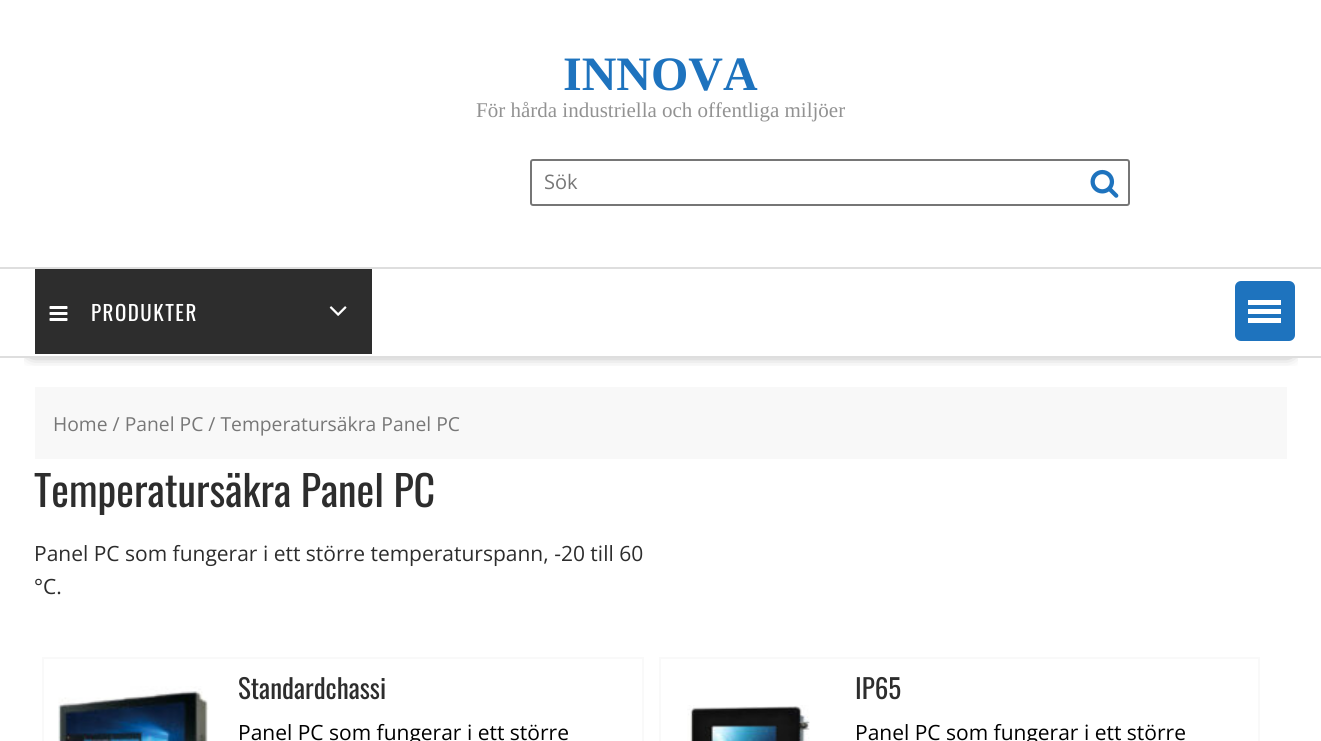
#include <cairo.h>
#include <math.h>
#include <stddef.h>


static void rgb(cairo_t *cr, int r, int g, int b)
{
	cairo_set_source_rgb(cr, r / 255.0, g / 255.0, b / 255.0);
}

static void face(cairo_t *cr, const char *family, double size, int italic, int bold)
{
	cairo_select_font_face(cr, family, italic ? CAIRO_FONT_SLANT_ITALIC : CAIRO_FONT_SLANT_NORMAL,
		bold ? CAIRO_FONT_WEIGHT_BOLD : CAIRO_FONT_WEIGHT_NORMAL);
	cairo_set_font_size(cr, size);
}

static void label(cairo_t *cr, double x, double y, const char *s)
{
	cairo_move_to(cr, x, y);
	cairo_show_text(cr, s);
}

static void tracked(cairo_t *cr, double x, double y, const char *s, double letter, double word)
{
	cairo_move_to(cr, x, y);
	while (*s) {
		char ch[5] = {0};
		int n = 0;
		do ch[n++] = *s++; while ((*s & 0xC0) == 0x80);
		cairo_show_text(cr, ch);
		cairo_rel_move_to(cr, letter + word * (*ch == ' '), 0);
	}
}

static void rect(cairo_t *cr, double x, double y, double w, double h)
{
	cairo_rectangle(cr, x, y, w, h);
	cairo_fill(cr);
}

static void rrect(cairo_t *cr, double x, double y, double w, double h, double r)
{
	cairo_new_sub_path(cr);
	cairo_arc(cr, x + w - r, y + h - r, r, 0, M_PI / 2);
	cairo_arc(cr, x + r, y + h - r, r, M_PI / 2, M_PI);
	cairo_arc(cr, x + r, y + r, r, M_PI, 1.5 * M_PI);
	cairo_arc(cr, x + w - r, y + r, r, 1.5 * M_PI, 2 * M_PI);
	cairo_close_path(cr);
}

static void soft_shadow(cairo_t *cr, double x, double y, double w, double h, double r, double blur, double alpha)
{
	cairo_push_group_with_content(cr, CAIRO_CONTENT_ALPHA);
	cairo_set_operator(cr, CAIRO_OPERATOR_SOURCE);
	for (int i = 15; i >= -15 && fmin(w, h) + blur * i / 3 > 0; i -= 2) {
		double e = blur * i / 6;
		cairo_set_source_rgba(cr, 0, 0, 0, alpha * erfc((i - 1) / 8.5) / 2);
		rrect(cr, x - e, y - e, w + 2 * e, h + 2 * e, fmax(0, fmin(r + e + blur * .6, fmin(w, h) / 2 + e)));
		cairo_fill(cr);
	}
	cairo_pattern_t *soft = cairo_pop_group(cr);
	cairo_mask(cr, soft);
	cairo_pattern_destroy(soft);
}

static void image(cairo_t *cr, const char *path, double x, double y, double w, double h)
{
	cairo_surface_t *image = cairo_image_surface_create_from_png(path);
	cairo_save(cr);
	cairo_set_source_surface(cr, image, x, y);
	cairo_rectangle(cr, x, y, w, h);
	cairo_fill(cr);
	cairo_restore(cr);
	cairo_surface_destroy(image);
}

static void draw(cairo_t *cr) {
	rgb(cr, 255, 255, 255);
	cairo_paint(cr);
	face(cr, "Liberation Serif", 48, 0, 1);
	rgb(cr, 30, 115, 190);
	label(cr, 563, 90, "INNOVA");
	face(cr, "Liberation Serif", 21, 0, 0);
	rgb(cr, 146, 146, 146);
	label(cr, 476, 117, "För hårda industriella och offentliga miljöer");
	rrect(cr, 531, 160, 598, 45, 2);
	rgb(cr, 118, 118, 118);
	cairo_stroke(cr);
	face(cr, "Open Sans", 20, 0, 0);
	rgb(cr, 119, 119, 119);
	label(cr, 544, 189, "Sök");
	image(cr, "image0.png", 1090, 169, 29, 29);
	cairo_save(cr);
	cairo_rectangle(cr, 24, 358, 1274, 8);
	cairo_clip(cr);
	rgb(cr, 0, 0, 0);
	soft_shadow(cr, 32, 324, 1258, 27, 0, 8, 0.75);
	cairo_restore(cr);
	rgb(cr, 222, 222, 222);
	rect(cr, 0, 267, 1321, 2);
	rect(cr, 0, 356, 1321, 2);
	rgb(cr, 45, 45, 45);
	rect(cr, 35, 269, 337, 85);
	image(cr, "image1.png", 49, 306, 19, 15);
	face(cr, "Oswald", 21, 0, 0);
	rgb(cr, 255, 255, 255);
	tracked(cr, 91, 321, "PRODUKTER", 1.5, 0);
	image(cr, "image2.png", 329, 306, 18, 10);
	rgb(cr, 30, 115, 190);
	rrect(cr, 1236, 282, 58, 58, 5);
	cairo_fill_preserve(cr);
	cairo_stroke(cr);
	rgb(cr, 255, 255, 255);
	rect(cr, 1248, 318, 33, 5);
	rect(cr, 1248, 309, 33, 5);
	rect(cr, 1248, 300, 33, 5);
	rgb(cr, 248, 248, 248);
	rect(cr, 35, 387, 1252, 72);
	face(cr, "Open Sans", 19.3, 0, 0);
	rgb(cr, 119, 119, 119);
	label(cr, 53, 431, "Home / Panel PC / Temperatursäkra Panel PC");
	face(cr, "Oswald", 42, 0, 0);
	rgb(cr, 45, 45, 45);
	label(cr, 34, 507, "Temperatursäkra Panel PC");
	face(cr, "Open Sans", 21, 0, 0);
	label(cr, 34, 561, "Panel PC som fungerar i ett större temperaturspann, -20 till 60");
	label(cr, 34, 594, "°C.");
	cairo_rectangle(cr, 43, 658, 600, 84);
	rgb(cr, 249, 249, 249);
	cairo_stroke(cr);
	image(cr, "image3.png", 58, 686, 151, 55);
	face(cr, "Oswald", 27, 0, 0);
	rgb(cr, 45, 45, 45);
	label(cr, 238, 699, "Standardchassi");
	face(cr, "Open Sans", 21, 0, 0);
	rgb(cr, 0, 0, 0);
	label(cr, 238, 740, "Panel PC som fungerar i ett större");
	cairo_rectangle(cr, 660, 658, 599, 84);
	rgb(cr, 249, 249, 249);
	cairo_stroke(cr);
	face(cr, "Oswald", 27, 0, 0);
	rgb(cr, 45, 45, 45);
	label(cr, 855, 699, "IP65");
	image(cr, "image4.png", 687, 705, 123, 36);
	face(cr, "Open Sans", 21, 0, 0);
	rgb(cr, 0, 0, 0);
	label(cr, 855, 740, "Panel PC som fungerar i ett större");
}

int main(void) {
	cairo_surface_t *surface = cairo_image_surface_create(CAIRO_FORMAT_RGB24, 1321, 741);
	cairo_t *cr = cairo_create(surface);
	cairo_font_options_t *options = cairo_font_options_create();
	cairo_font_options_set_hint_metrics(options, CAIRO_HINT_METRICS_OFF);
	cairo_font_options_set_hint_style(options, CAIRO_HINT_STYLE_NONE);
	cairo_set_font_options(cr, options);
	cairo_set_miter_limit(cr, 4);
	draw(cr);
	cairo_surface_write_to_png(surface, "render.png");
	cairo_font_options_destroy(options);
	cairo_destroy(cr);
	cairo_surface_destroy(surface);
	return 0;
}
